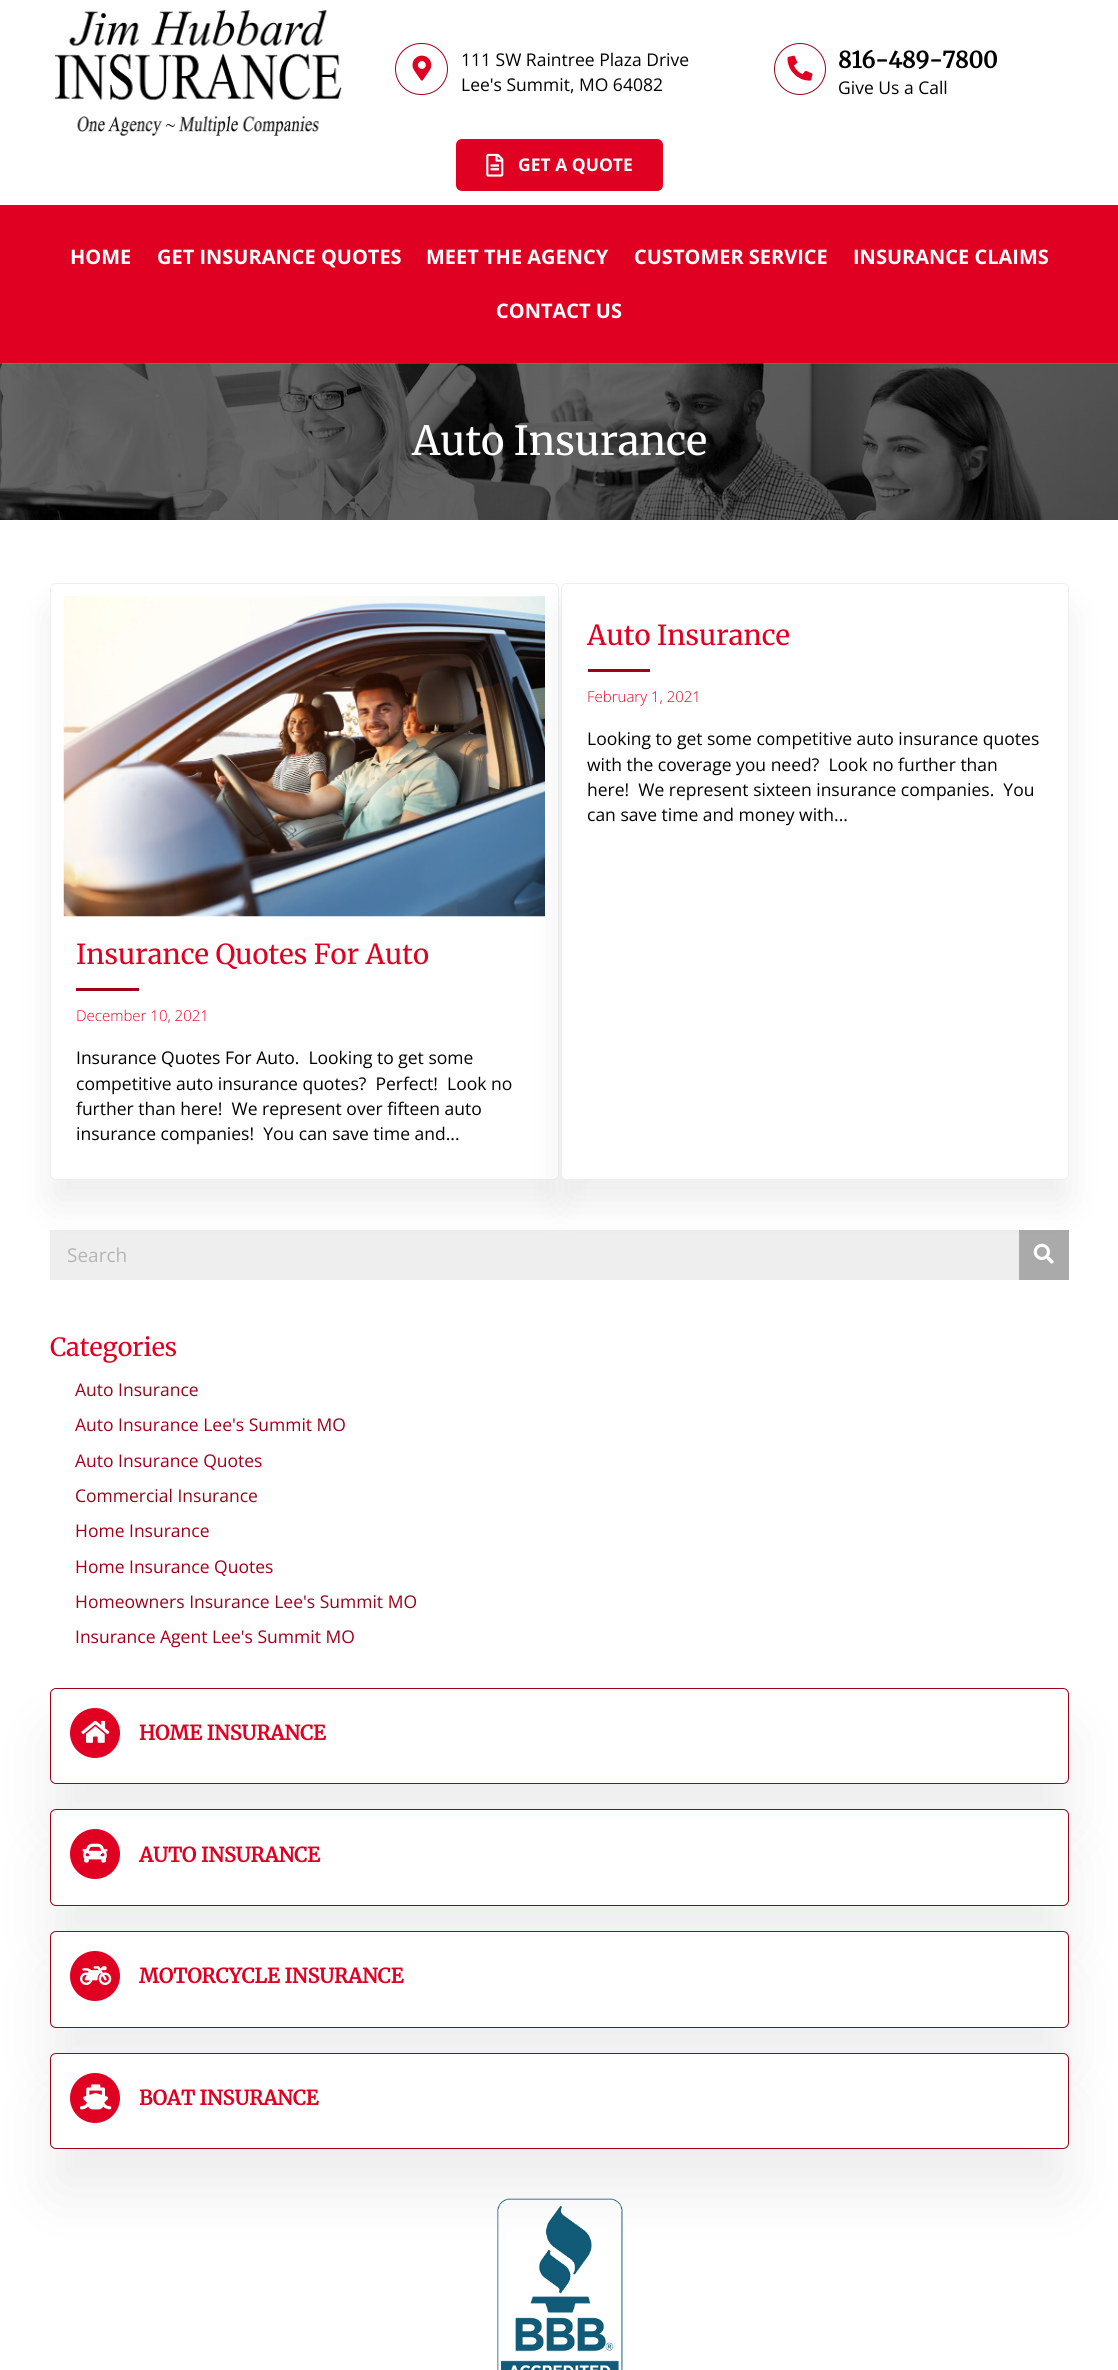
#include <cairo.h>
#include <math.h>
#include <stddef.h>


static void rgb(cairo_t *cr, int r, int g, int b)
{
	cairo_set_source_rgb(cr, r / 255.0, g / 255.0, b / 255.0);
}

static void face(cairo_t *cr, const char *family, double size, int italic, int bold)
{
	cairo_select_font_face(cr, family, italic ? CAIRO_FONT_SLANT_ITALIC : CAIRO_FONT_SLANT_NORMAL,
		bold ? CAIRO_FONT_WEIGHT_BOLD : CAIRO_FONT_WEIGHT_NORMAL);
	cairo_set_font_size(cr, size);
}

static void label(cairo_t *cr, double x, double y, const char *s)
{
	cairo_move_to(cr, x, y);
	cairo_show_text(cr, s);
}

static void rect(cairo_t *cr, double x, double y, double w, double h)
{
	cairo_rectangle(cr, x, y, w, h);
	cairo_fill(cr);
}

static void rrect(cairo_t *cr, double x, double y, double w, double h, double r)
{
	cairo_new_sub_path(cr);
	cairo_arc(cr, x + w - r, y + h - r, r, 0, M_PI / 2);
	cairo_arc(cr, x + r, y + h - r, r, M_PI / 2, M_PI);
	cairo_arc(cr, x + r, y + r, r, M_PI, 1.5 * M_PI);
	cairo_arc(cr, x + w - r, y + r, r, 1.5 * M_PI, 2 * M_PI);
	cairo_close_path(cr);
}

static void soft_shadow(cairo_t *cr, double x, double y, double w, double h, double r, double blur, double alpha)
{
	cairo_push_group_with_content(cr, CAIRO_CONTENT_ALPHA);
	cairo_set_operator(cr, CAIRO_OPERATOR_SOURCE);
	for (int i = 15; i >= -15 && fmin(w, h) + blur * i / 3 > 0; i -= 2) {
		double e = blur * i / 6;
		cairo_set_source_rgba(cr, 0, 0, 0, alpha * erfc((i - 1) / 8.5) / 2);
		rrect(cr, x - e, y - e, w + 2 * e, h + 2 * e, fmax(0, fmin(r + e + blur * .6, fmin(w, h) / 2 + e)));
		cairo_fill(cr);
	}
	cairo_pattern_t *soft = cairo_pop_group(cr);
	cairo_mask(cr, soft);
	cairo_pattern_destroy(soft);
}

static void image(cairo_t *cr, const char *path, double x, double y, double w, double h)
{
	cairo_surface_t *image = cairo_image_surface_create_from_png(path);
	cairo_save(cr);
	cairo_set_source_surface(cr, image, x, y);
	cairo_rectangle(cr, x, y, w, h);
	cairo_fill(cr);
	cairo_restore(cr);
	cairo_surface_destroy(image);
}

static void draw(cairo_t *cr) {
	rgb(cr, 255, 255, 255);
	cairo_paint(cr);
	image(cr, "image0.png", 54, 10, 288, 126);
	rrect(cr, 395.5, 43.5, 52, 51, 25.5);
	rgb(cr, 161, 0, 24);
	cairo_set_line_width(cr, 1);
	cairo_stroke(cr);
	image(cr, "image1.png", 412, 55, 20, 26);
	face(cr, "Open Sans", 17.5, 0, 0);
	rgb(cr, 0, 0, 0);
	label(cr, 461, 66, "111 SW Raintree Plaza Drive");
	label(cr, 461, 91, "Lee's Summit, MO 64082");
	cairo_new_path(cr);
	cairo_arc(cr, 800, 69, 25.5, 0, 2 * M_PI);
	rgb(cr, 161, 0, 24);
	cairo_stroke(cr);
	image(cr, "image2.png", 787, 55, 26, 26);
	face(cr, "Merriweather", 22.5, 0, 1);
	rgb(cr, 0, 0, 0);
	label(cr, 838, 68, "816-489-7800");
	face(cr, "Open Sans", 17.5, 0, 0);
	label(cr, 838, 94, "Give Us a Call");
	rgb(cr, 224, 1, 34);
	rrect(cr, 456, 139, 207, 52, 6);
	cairo_fill(cr);
	image(cr, "image3.png", 486, 153, 18, 24);
	face(cr, "Open Sans", 17.5, 0, 1);
	rgb(cr, 255, 255, 255);
	label(cr, 518, 171, "GET A QUOTE");
	rgb(cr, 224, 1, 34);
	rect(cr, 0, 205, 1118, 159);
	face(cr, "Open Sans", 20, 0, 1);
	rgb(cr, 255, 255, 255);
	label(cr, 70, 264, "HOME");
	label(cr, 157, 264, "GET INSURANCE QUOTES");
	label(cr, 426, 264, "MEET THE AGENCY");
	label(cr, 634, 264, "CUSTOMER SERVICE");
	label(cr, 853, 264, "INSURANCE CLAIMS");
	label(cr, 496, 318, "CONTACT US");
	image(cr, "image4.png", 0, 363, 1118, 157);
	face(cr, "Merriweather Light", 40, 0, 0);
	label(cr, 412, 455, "Auto Insurance");
	rgb(cr, 238, 238, 238);
	rect(cr, 50, 1230, 969, 50);
	rgb(cr, 0, 0, 0);
	soft_shadow(cr, 50, 608, 509, 597, 6, 19, 0.07);
	rgb(cr, 255, 255, 255);
	rrect(cr, 50.5, 583.5, 508, 596, 5.5);
	cairo_fill_preserve(cr);
	rgb(cr, 237, 239, 242);
	cairo_stroke(cr);
	image(cr, "image5.png", 63, 596, 482, 321);
	rgb(cr, 170, 170, 170);
	rect(cr, 1019, 1230, 50, 50);
	image(cr, "image6.png", 1033, 1243, 21, 21);
	rgb(cr, 0, 0, 0);
	soft_shadow(cr, 561, 608, 508, 597, 6, 19, 0.07);
	rgb(cr, 255, 255, 255);
	rrect(cr, 561.5, 583.5, 507, 596, 5.5);
	cairo_fill_preserve(cr);
	rgb(cr, 237, 239, 242);
	cairo_stroke(cr);
	face(cr, "Merriweather Light", 27.5, 0, 0);
	rgb(cr, 224, 0, 34);
	label(cr, 587, 645, "Auto Insurance");
	rgb(cr, 161, 0, 24);
	rect(cr, 588, 669, 62, 3);
	face(cr, "Open Sans Light", 15, 0, 0);
	rgb(cr, 237, 0, 36);
	label(cr, 587, 702, "February 1, 2021");
	face(cr, "Open Sans", 17.5, 0, 0);
	rgb(cr, 0, 0, 0);
	label(cr, 587, 745, "Looking to get some competitive auto insurance quotes");
	label(cr, 587, 771, "with the coverage you need?  Look no further than");
	label(cr, 587, 796, "here!  We represent sixteen insurance companies.  You");
	label(cr, 587, 821, "can save time and money with...");
	face(cr, "Merriweather Light", 27.5, 0, 0);
	rgb(cr, 224, 0, 34);
	label(cr, 76, 964, "Insurance Quotes For Auto");
	rgb(cr, 161, 0, 24);
	rect(cr, 76, 988, 63, 3);
	face(cr, "Open Sans Light", 15, 0, 0);
	rgb(cr, 237, 0, 36);
	label(cr, 76, 1021, "December 10, 2021");
	face(cr, "Open Sans", 17.5, 0, 0);
	rgb(cr, 0, 0, 0);
	label(cr, 76, 1064, "Insurance Quotes For Auto.  Looking to get some");
	label(cr, 76, 1090, "competitive auto insurance quotes?  Perfect!  Look no");
	label(cr, 76, 1115, "further than here!  We represent over fifteen auto");
	label(cr, 76, 1140, "insurance companies!  You can save time and...");
	face(cr, "Open Sans", 19, 0, 0);
	rgb(cr, 181, 181, 181);
	label(cr, 67, 1262, "Search");
	face(cr, "Merriweather Light", 25, 0, 0);
	rgb(cr, 224, 0, 34);
	label(cr, 50, 1356, "Categories");
	face(cr, "Open Sans", 17.5, 0, 0);
	rgb(cr, 161, 0, 24);
	label(cr, 75, 1396, "Auto Insurance");
	label(cr, 75, 1431, "Auto Insurance Lee's Summit MO");
	label(cr, 75, 1467, "Auto Insurance Quotes");
	label(cr, 75, 1502, "Commercial Insurance");
	label(cr, 75, 1537, "Home Insurance");
	label(cr, 75, 1573, "Home Insurance Quotes");
	label(cr, 75, 1608, "Homeowners Insurance Lee's Summit MO");
	label(cr, 75, 1643, "Insurance Agent Lee's Summit MO");
	rgb(cr, 0, 0, 0);
	soft_shadow(cr, 50, 1731, 1019, 97, 6, 31, 0.07);
	rgb(cr, 255, 255, 255);
	rrect(cr, 50.5, 1688.5, 1018, 95, 5.5);
	cairo_fill_preserve(cr);
	rgb(cr, 161, 0, 24);
	cairo_stroke(cr);
	rgb(cr, 224, 1, 34);
	cairo_arc(cr, 95, 1733, 25, 0, 2 * M_PI);
	cairo_fill(cr);
	image(cr, "image7.png", 81, 1720, 29, 23);
	face(cr, "Merriweather", 20, 0, 1);
	rgb(cr, 224, 0, 34);
	label(cr, 139, 1740, "HOME INSURANCE");
	rgb(cr, 0, 0, 0);
	soft_shadow(cr, 50, 1853, 1019, 97, 6, 31, 0.07);
	rgb(cr, 255, 255, 255);
	rrect(cr, 50.5, 1809.5, 1018, 96, 5.5);
	cairo_fill_preserve(cr);
	rgb(cr, 161, 0, 24);
	cairo_stroke(cr);
	rgb(cr, 224, 1, 34);
	cairo_arc(cr, 95, 1854, 25, 0, 2 * M_PI);
	cairo_fill(cr);
	image(cr, "image8.png", 82, 1843, 26, 20);
	rgb(cr, 224, 0, 34);
	label(cr, 139, 1862, "AUTO INSURANCE");
	rgb(cr, 0, 0, 0);
	soft_shadow(cr, 50, 1975, 1019, 96, 6, 31, 0.07);
	rgb(cr, 255, 255, 255);
	rrect(cr, 50.5, 1931.5, 1018, 96, 5.5);
	cairo_fill_preserve(cr);
	rgb(cr, 161, 0, 24);
	cairo_stroke(cr);
	rgb(cr, 224, 1, 34);
	cairo_arc(cr, 95, 1976, 25, 0, 2 * M_PI);
	cairo_fill(cr);
	image(cr, "image9.png", 80, 1966, 32, 19);
	rgb(cr, 224, 0, 34);
	label(cr, 139, 1983, "MOTORCYCLE INSURANCE");
	rgb(cr, 0, 0, 0);
	soft_shadow(cr, 50, 2096, 1019, 97, 6, 31, 0.07);
	rgb(cr, 255, 255, 255);
	rrect(cr, 50.5, 2053.5, 1018, 95, 5.5);
	cairo_fill_preserve(cr);
	rgb(cr, 161, 0, 24);
	cairo_stroke(cr);
	rgb(cr, 224, 1, 34);
	cairo_arc(cr, 95, 2098, 25, 0, 2 * M_PI);
	cairo_fill(cr);
	image(cr, "image10.png", 80, 2084, 32, 26);
	rgb(cr, 224, 0, 34);
	label(cr, 139, 2105, "BOAT INSURANCE");
	image(cr, "image11.png", 497, 2198, 126, 172);
}

int main(void) {
	cairo_surface_t *surface = cairo_image_surface_create(CAIRO_FORMAT_RGB24, 1118, 2370);
	cairo_t *cr = cairo_create(surface);
	cairo_font_options_t *options = cairo_font_options_create();
	cairo_font_options_set_hint_metrics(options, CAIRO_HINT_METRICS_OFF);
	cairo_font_options_set_hint_style(options, CAIRO_HINT_STYLE_NONE);
	cairo_set_font_options(cr, options);
	cairo_set_miter_limit(cr, 4);
	draw(cr);
	cairo_surface_write_to_png(surface, "render.png");
	cairo_font_options_destroy(options);
	cairo_destroy(cr);
	cairo_surface_destroy(surface);
	return 0;
}
